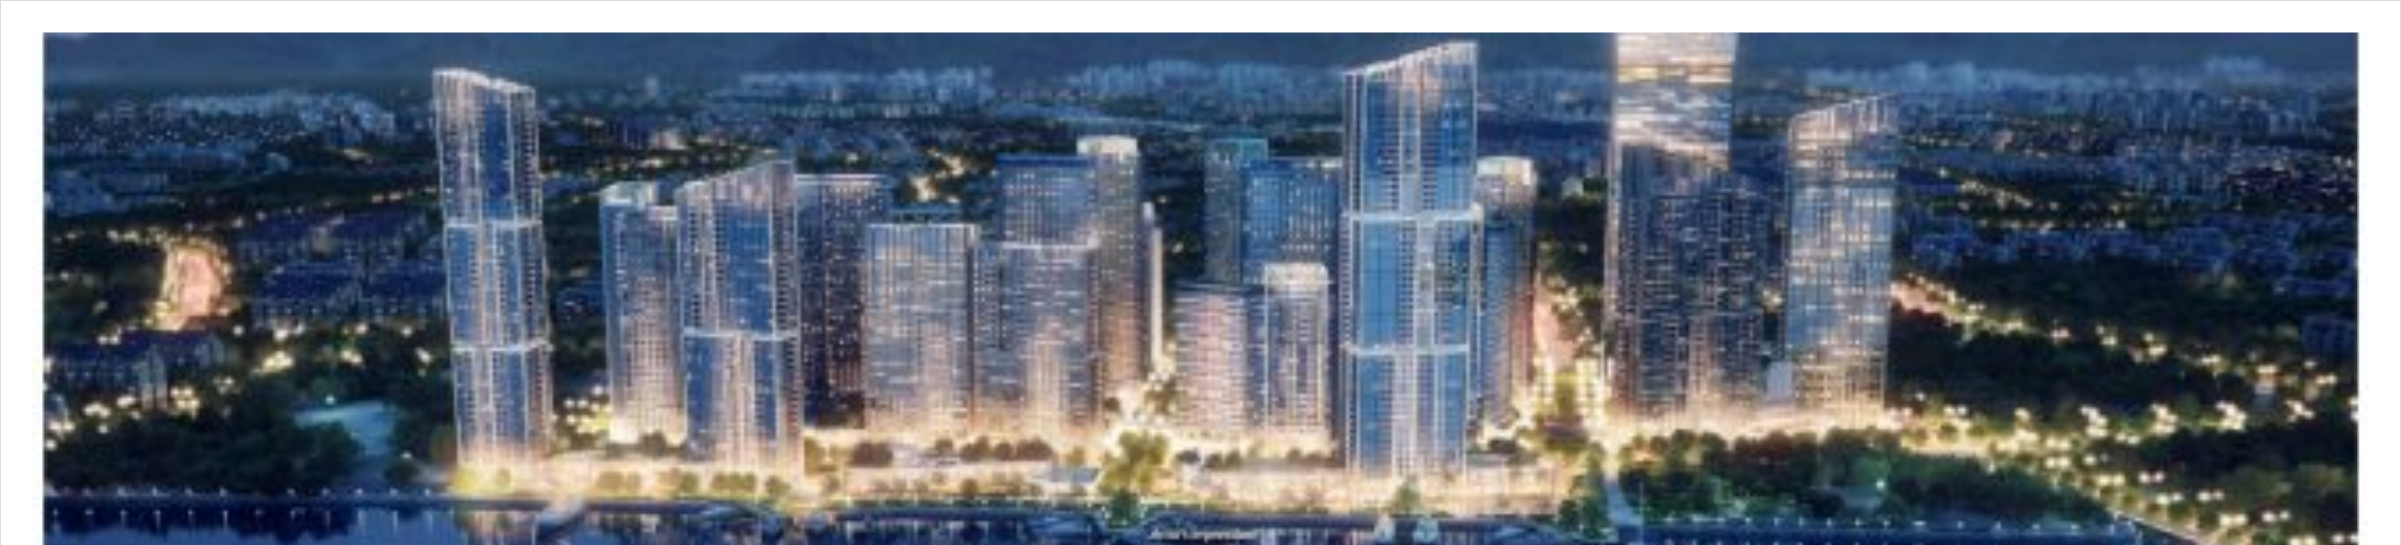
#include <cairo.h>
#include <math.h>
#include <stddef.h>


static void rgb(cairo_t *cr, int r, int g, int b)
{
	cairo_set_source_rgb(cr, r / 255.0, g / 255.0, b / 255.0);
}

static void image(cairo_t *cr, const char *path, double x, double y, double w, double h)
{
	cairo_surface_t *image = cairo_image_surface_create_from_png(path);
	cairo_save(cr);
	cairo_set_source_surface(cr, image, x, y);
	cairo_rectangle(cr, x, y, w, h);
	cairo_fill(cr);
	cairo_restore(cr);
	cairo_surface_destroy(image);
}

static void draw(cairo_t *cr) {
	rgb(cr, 255, 255, 255);
	cairo_paint(cr);
	cairo_rectangle(cr, 0.5, 0.5, 2400, 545);
	rgb(cr, 220, 220, 222);
	cairo_set_line_width(cr, 1);
	cairo_stroke(cr);
	image(cr, "image0.png", 32, 32, 2337, 513);
}

int main(void) {
	cairo_surface_t *surface = cairo_image_surface_create(CAIRO_FORMAT_RGB24, 2401, 545);
	cairo_t *cr = cairo_create(surface);
	cairo_font_options_t *options = cairo_font_options_create();
	cairo_font_options_set_hint_metrics(options, CAIRO_HINT_METRICS_OFF);
	cairo_font_options_set_hint_style(options, CAIRO_HINT_STYLE_NONE);
	cairo_set_font_options(cr, options);
	cairo_set_miter_limit(cr, 4);
	draw(cr);
	cairo_surface_write_to_png(surface, "render.png");
	cairo_font_options_destroy(options);
	cairo_destroy(cr);
	cairo_surface_destroy(surface);
	return 0;
}
